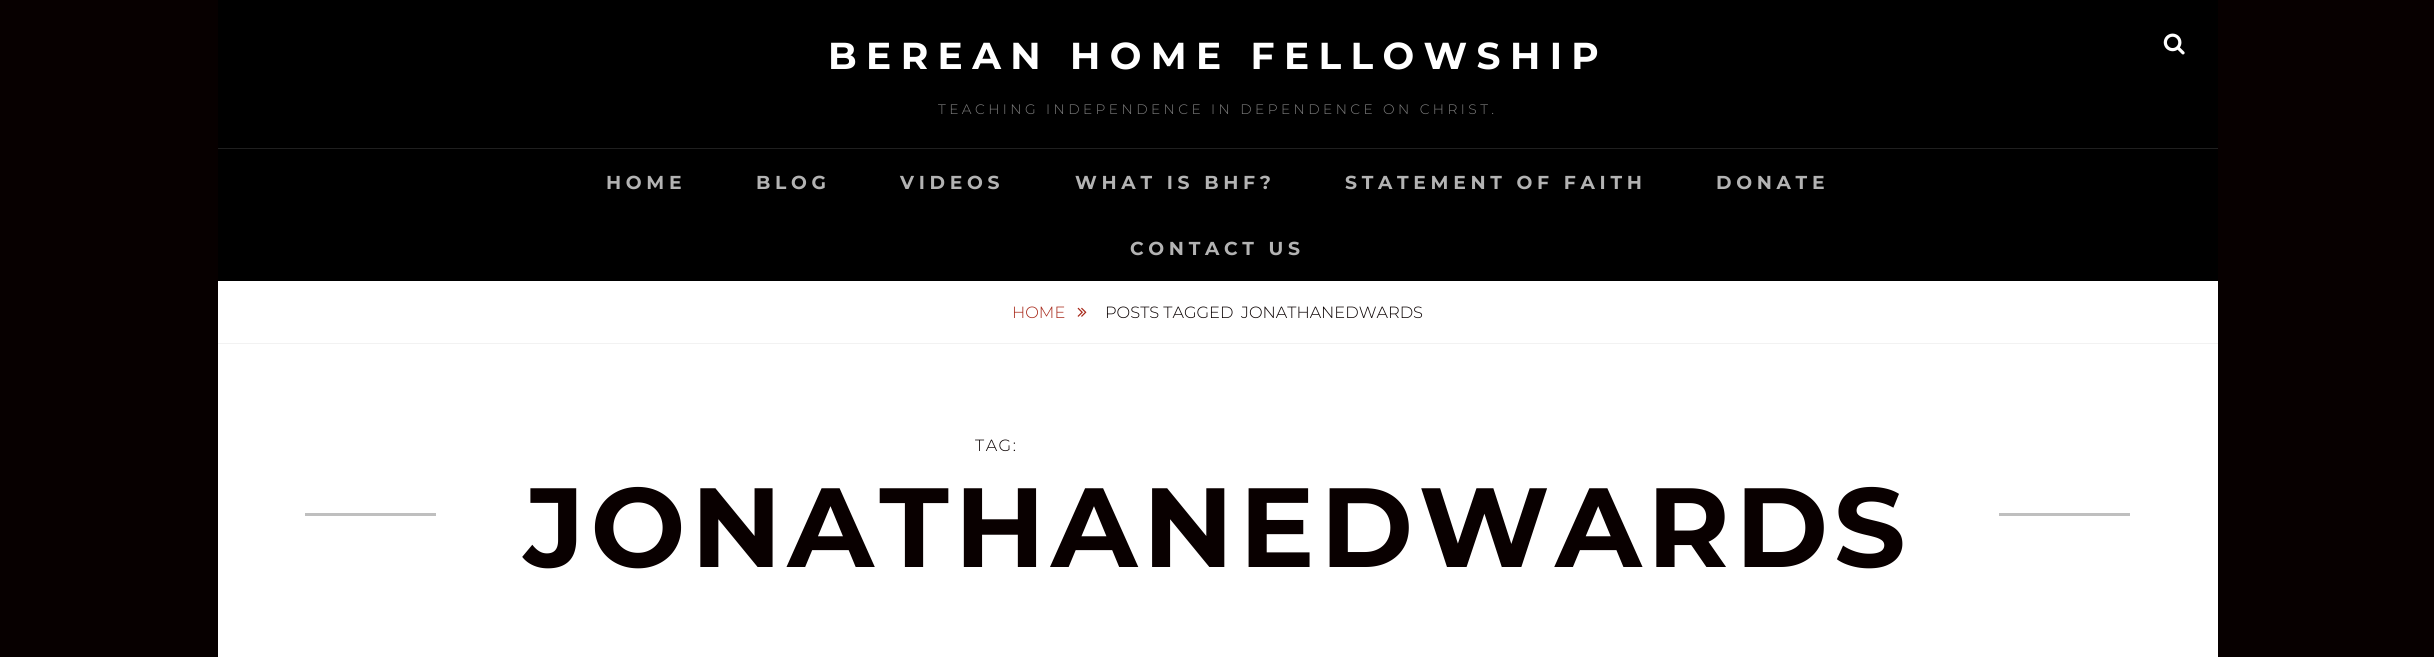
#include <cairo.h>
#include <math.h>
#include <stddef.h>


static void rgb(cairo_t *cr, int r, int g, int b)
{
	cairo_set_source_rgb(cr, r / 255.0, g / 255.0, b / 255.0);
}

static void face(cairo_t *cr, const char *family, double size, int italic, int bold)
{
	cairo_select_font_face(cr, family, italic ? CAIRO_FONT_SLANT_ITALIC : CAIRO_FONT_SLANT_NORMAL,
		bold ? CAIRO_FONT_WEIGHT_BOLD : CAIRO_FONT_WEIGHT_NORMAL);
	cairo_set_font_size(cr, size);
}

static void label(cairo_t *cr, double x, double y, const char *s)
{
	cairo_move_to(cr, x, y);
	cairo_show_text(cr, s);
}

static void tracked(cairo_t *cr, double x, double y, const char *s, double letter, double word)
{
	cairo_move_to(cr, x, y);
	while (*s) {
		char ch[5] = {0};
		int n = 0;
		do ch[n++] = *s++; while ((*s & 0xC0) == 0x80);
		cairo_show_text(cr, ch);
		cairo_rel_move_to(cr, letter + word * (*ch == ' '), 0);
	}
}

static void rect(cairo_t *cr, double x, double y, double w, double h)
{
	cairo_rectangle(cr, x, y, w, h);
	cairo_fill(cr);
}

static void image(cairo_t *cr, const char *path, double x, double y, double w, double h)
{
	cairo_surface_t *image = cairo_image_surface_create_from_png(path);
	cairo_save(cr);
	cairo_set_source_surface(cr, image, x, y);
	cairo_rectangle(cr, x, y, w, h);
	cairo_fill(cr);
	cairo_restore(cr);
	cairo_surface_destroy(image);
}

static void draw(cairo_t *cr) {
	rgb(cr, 7, 0, 0);
	cairo_paint(cr);
	rgb(cr, 255, 255, 255);
	rect(cr, 218, 281, 2000, 376);
	rgb(cr, 0, 0, 0);
	rect(cr, 218, 0, 2000, 281);
	face(cr, "Montserrat", 37.5, 0, 1);
	rgb(cr, 255, 255, 255);
	tracked(cr, 828, 69, "BEREAN HOME FELLOWSHIP", 9.4, 0);
	face(cr, "Montserrat Light", 13.75, 0, 0);
	rgb(cr, 128, 128, 128);
	tracked(cr, 938, 114, "TEACHING INDEPENDENCE IN DEPENDENCE ON CHRIST.", 3.45, 0);
	image(cr, "image0.png", 2163, 33, 22, 22);
	rgb(cr, 31, 31, 31);
	rect(cr, 218, 148, 2000, 1);
	face(cr, "Montserrat", 18.75, 0, 1);
	rgb(cr, 179, 179, 179);
	tracked(cr, 606, 189, "HOME", 4.7, 0);
	tracked(cr, 756, 189, "BLOG", 4.7, 0);
	tracked(cr, 900, 189, "VIDEOS", 4.7, 0);
	tracked(cr, 1075, 189, "WHAT IS BHF?", 4.7, 0);
	tracked(cr, 1345, 189, "STATEMENT OF FAITH", 4.7, 0);
	tracked(cr, 1716, 189, "DONATE", 4.7, 0);
	tracked(cr, 1130, 255, "CONTACT US", 4.7, 0);
	rgb(cr, 242, 242, 242);
	rect(cr, 218, 343, 2000, 1);
	face(cr, "Montserrat Light", 16.25, 0, 0);
	rgb(cr, 167, 40, 25);
	label(cr, 1012, 318, "HOME");
	image(cr, "image1.png", 1077, 307, 10, 10);
	rgb(cr, 9, 0, 0);
	label(cr, 1105, 318, "POSTS TAGGED");
	label(cr, 1241, 318, "JONATHANEDWARDS");
	rgb(cr, 191, 191, 191);
	rect(cr, 305, 513, 1825, 3);
	rgb(cr, 255, 255, 255);
	rect(cr, 436, 513, 1563, 3);
	rgb(cr, 9, 0, 0);
	tracked(cr, 975, 451, "TAG:", 1.5, 0);
	face(cr, "Montserrat", 112.5, 0, 1);
	tracked(cr, 524, 567, "JONATHANEDWARDS", 5.6, 0);
}

int main(void) {
	cairo_surface_t *surface = cairo_image_surface_create(CAIRO_FORMAT_RGB24, 2434, 657);
	cairo_t *cr = cairo_create(surface);
	cairo_font_options_t *options = cairo_font_options_create();
	cairo_font_options_set_hint_metrics(options, CAIRO_HINT_METRICS_OFF);
	cairo_font_options_set_hint_style(options, CAIRO_HINT_STYLE_NONE);
	cairo_set_font_options(cr, options);
	cairo_set_miter_limit(cr, 4);
	draw(cr);
	cairo_surface_write_to_png(surface, "render.png");
	cairo_font_options_destroy(options);
	cairo_destroy(cr);
	cairo_surface_destroy(surface);
	return 0;
}
